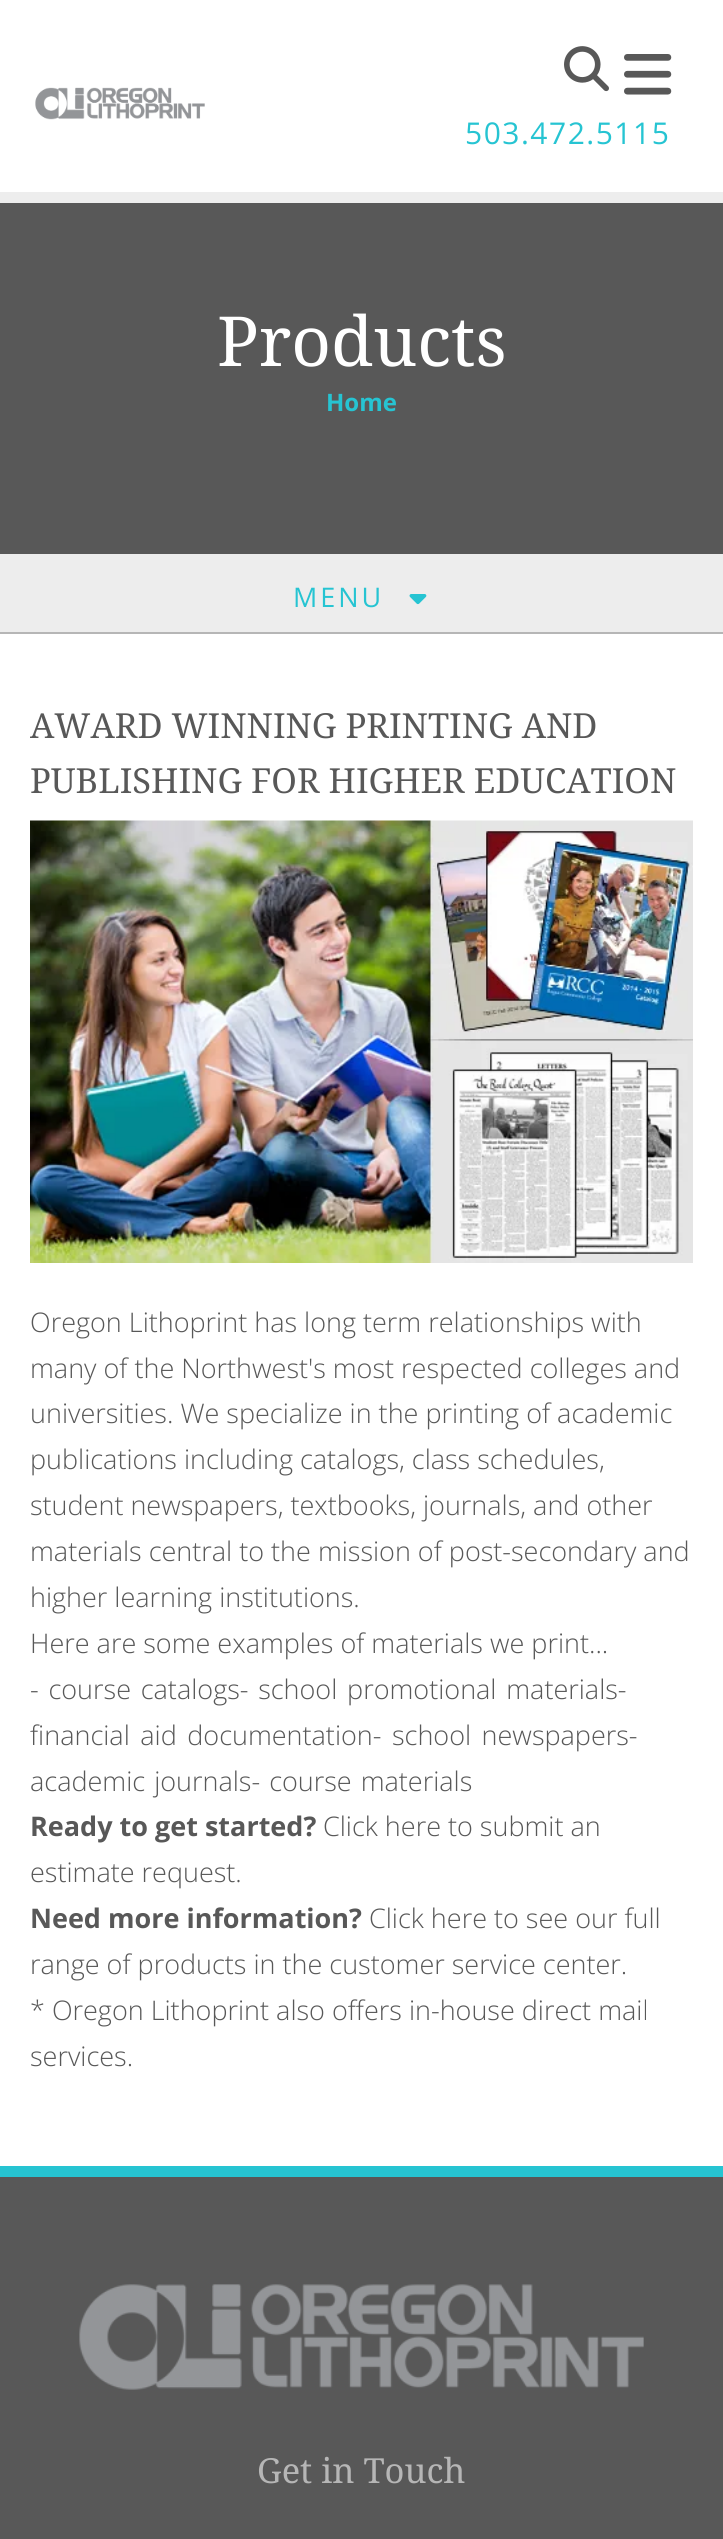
#include <cairo.h>
#include <math.h>
#include <stddef.h>


static void rgb(cairo_t *cr, int r, int g, int b)
{
	cairo_set_source_rgb(cr, r / 255.0, g / 255.0, b / 255.0);
}

static void face(cairo_t *cr, const char *family, double size, int italic, int bold)
{
	cairo_select_font_face(cr, family, italic ? CAIRO_FONT_SLANT_ITALIC : CAIRO_FONT_SLANT_NORMAL,
		bold ? CAIRO_FONT_WEIGHT_BOLD : CAIRO_FONT_WEIGHT_NORMAL);
	cairo_set_font_size(cr, size);
}

static void label(cairo_t *cr, double x, double y, const char *s)
{
	cairo_move_to(cr, x, y);
	cairo_show_text(cr, s);
}

static void tracked(cairo_t *cr, double x, double y, const char *s, double letter, double word)
{
	cairo_move_to(cr, x, y);
	while (*s) {
		char ch[5] = {0};
		int n = 0;
		do ch[n++] = *s++; while ((*s & 0xC0) == 0x80);
		cairo_show_text(cr, ch);
		cairo_rel_move_to(cr, letter + word * (*ch == ' '), 0);
	}
}

static void rect(cairo_t *cr, double x, double y, double w, double h)
{
	cairo_rectangle(cr, x, y, w, h);
	cairo_fill(cr);
}

static void image(cairo_t *cr, const char *path, double x, double y, double w, double h)
{
	cairo_surface_t *image = cairo_image_surface_create_from_png(path);
	cairo_save(cr);
	cairo_set_source_surface(cr, image, x, y);
	cairo_rectangle(cr, x, y, w, h);
	cairo_fill(cr);
	cairo_restore(cr);
	cairo_surface_destroy(image);
}

static void draw(cairo_t *cr) {
	rgb(cr, 88, 88, 88);
	cairo_paint(cr);
	rgb(cr, 255, 255, 255);
	rect(cr, 0, 0, 723, 192);
	image(cr, "image0.png", 35, 87, 170, 33);
	image(cr, "image1.png", 564, 46, 45, 46);
	image(cr, "image2.png", 624, 54, 48, 41);
	face(cr, "Open Sans", 30, 0, 0);
	rgb(cr, 38, 196, 210);
	tracked(cr, 465, 144, "503.472.5115", 1.5, 0);
	rgb(cr, 237, 237, 237);
	rect(cr, 0, 192, 723, 11);
	face(cr, "Noto Serif", 69, 0, 0);
	rgb(cr, 255, 255, 255);
	label(cr, 217, 366, "Products");
	face(cr, "Open Sans", 24, 0, 1);
	rgb(cr, 38, 196, 210);
	label(cr, 326, 411, "Home");
	rgb(cr, 255, 255, 255);
	rect(cr, 0, 634, 723, 1532);
	rgb(cr, 237, 237, 237);
	rect(cr, 0, 554, 723, 78);
	rgb(cr, 182, 182, 182);
	rect(cr, 0, 632, 723, 2);
	face(cr, "Open Sans", 27, 0, 0);
	rgb(cr, 38, 196, 210);
	tracked(cr, 293, 607, "MENU", 3, 0);
	image(cr, "image3.png", 409, 594, 18, 11);
	face(cr, "Noto Serif", 34.5, 0, 0);
	rgb(cr, 88, 88, 88);
	label(cr, 30, 738, "AWARD WINNING PRINTING AND");
	label(cr, 30, 793, "PUBLISHING FOR HIGHER EDUCATION");
	image(cr, "image4.png", 30, 820, 663, 443);
	face(cr, "Open Sans Light", 27, 0, 0);
	label(cr, 30, 1332, "Oregon Lithoprint has long term relationships with");
	label(cr, 30, 1378, "many of the Northwest's most respected colleges and");
	label(cr, 30, 1423, "universities. We specialize in the printing of academic");
	label(cr, 30, 1469, "publications including catalogs, class schedules,");
	label(cr, 30, 1515, "student newspapers, textbooks, journals, and other");
	label(cr, 30, 1561, "materials central to the mission of post-secondary and");
	label(cr, 30, 1607, "higher learning institutions.");
	label(cr, 30, 1653, "Here are some examples of materials we print...");
	tracked(cr, 30, 1699, "- course catalogs- school promotional materials-", 0, 2.75);
	tracked(cr, 30, 1745, "financial aid documentation- school newspapers-", 0, 3.5);
	tracked(cr, 30, 1791, "academic journals- course materials", 0, 2);
	face(cr, "Open Sans", 27, 0, 1);
	label(cr, 30, 1836, "Ready to get started?");
	face(cr, "Open Sans Light", 27, 0, 0);
	label(cr, 323, 1836, "Click here to submit an");
	label(cr, 30, 1882, "estimate request.");
	face(cr, "Open Sans", 27, 0, 1);
	label(cr, 30, 1928, "Need more information?");
	face(cr, "Open Sans Light", 27, 0, 0);
	label(cr, 369, 1928, "Click here to see our full");
	label(cr, 30, 1974, "range of products in the customer service center.");
	label(cr, 30, 2020, "* Oregon Lithoprint also offers in-house direct mail");
	label(cr, 30, 2066, "services.");
	rgb(cr, 38, 196, 210);
	rect(cr, 0, 2166, 723, 11);
	image(cr, "image5.png", 79, 2284, 565, 106);
	face(cr, "Noto Serif", 34.5, 0, 0);
	rgb(cr, 182, 182, 182);
	label(cr, 257, 2483, "Get in Touch");
}

int main(void) {
	cairo_surface_t *surface = cairo_image_surface_create(CAIRO_FORMAT_RGB24, 723, 2539);
	cairo_t *cr = cairo_create(surface);
	cairo_font_options_t *options = cairo_font_options_create();
	cairo_font_options_set_hint_metrics(options, CAIRO_HINT_METRICS_OFF);
	cairo_font_options_set_hint_style(options, CAIRO_HINT_STYLE_NONE);
	cairo_set_font_options(cr, options);
	cairo_set_miter_limit(cr, 4);
	draw(cr);
	cairo_surface_write_to_png(surface, "render.png");
	cairo_font_options_destroy(options);
	cairo_destroy(cr);
	cairo_surface_destroy(surface);
	return 0;
}
